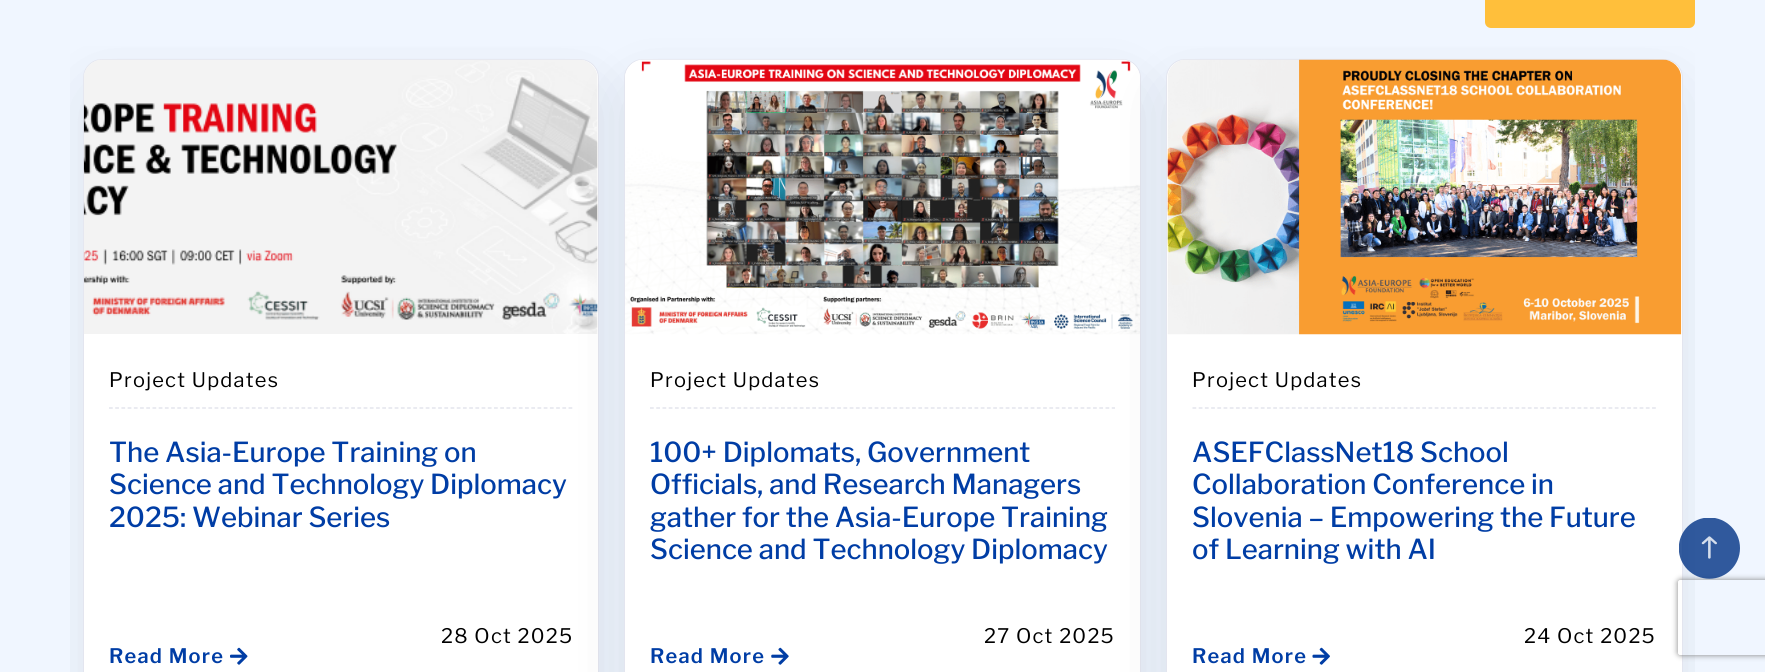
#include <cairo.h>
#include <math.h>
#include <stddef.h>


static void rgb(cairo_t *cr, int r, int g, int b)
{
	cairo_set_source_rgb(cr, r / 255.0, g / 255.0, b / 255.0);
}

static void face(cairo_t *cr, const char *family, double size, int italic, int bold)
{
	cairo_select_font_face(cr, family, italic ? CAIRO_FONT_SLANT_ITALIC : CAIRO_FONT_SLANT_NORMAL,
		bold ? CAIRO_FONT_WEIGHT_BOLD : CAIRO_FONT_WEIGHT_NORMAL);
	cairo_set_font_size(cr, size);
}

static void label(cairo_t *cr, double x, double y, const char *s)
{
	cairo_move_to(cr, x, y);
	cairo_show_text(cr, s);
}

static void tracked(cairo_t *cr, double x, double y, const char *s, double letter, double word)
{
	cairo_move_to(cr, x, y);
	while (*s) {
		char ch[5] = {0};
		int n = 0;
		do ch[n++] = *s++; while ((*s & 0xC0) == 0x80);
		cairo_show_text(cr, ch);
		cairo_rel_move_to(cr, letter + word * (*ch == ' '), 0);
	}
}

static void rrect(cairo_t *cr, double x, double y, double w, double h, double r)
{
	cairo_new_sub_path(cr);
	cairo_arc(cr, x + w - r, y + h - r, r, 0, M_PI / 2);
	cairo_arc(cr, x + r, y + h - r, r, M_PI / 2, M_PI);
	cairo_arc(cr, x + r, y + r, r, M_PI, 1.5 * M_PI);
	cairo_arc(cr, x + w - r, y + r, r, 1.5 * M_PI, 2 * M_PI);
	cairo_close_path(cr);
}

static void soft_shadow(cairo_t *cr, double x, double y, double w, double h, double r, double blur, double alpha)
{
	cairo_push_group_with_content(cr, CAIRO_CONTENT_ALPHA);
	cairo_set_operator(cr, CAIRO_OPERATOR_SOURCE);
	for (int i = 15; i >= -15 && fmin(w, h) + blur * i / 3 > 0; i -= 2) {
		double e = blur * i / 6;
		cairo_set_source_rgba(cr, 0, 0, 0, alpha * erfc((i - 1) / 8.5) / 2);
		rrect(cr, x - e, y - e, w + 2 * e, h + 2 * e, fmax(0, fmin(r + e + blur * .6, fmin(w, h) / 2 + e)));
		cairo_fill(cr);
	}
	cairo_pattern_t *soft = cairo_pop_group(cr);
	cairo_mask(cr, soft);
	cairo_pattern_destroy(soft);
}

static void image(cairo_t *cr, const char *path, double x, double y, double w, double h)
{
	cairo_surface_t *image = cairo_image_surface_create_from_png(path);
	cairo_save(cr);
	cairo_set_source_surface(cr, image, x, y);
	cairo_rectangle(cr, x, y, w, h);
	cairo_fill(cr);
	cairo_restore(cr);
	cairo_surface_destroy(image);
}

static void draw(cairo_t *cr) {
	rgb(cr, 240, 246, 255);
	cairo_paint(cr);
	rgb(cr, 255, 191, 59);
	rrect(cr, 1485, -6, 210, 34, 6);
	cairo_fill(cr);
	cairo_save(cr);
	cairo_rectangle(cr, 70, 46, 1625, 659);
	cairo_clip(cr);
	rgb(cr, 10, 22, 37);
	soft_shadow(cr, 83, 84, 516, 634, 19, 31, 0.08);
	cairo_restore(cr);
	rgb(cr, 255, 255, 255);
	rrect(cr, 83.5, 59.5, 515, 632, 18.5);
	cairo_fill_preserve(cr);
	rgb(cr, 227, 229, 239);
	cairo_set_line_width(cr, 1);
	cairo_stroke(cr);
	image(cr, "image0.png", 83, 59, 515, 275);
	cairo_new_path(cr);
	cairo_move_to(cr, 109, 408);
	cairo_line_to(cr, 572.5, 408);
	rgb(cr, 220, 222, 232);
	cairo_set_line_width(cr, 1.2);
	cairo_set_dash(cr, (double[]){3.75, 2.46}, 2, 0);
	cairo_stroke(cr);
	face(cr, "Libre Franklin", 20, 0, 0);
	rgb(cr, 0, 0, 0);
	tracked(cr, 109, 387, "Project Updates", 1.25, 0);
	face(cr, "Libre Franklin Medium", 27.5, 0, 0);
	rgb(cr, 0, 61, 165);
	label(cr, 109, 462, "The Asia-Europe Training on");
	label(cr, 109, 494, "Science and Technology Diplomacy");
	label(cr, 109, 527, "2025: Webinar Series");
	face(cr, "Libre Franklin", 20, 0, 0);
	rgb(cr, 0, 0, 0);
	tracked(cr, 441, 643, "28 Oct 2025", 1.25, 0);
	face(cr, "Libre Franklin SemiBold", 20, 0, 0);
	rgb(cr, 0, 61, 165);
	tracked(cr, 109, 663, "Read More", 1.25, 0);
	image(cr, "image1.png", 230, 647, 18, 18);
	rgb(cr, 10, 22, 37);
	soft_shadow(cr, 624, 84, 517, 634, 19, 31, 0.08);
	rgb(cr, 255, 255, 255);
	rrect(cr, 624.5, 59.5, 516, 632, 18.5);
	cairo_fill_preserve(cr);
	rgb(cr, 227, 229, 239);
	cairo_set_line_width(cr, 1);
	cairo_set_dash(cr, NULL, 0, 0);
	cairo_stroke(cr);
	image(cr, "image2.png", 625, 59, 515, 276);
	cairo_new_path(cr);
	cairo_move_to(cr, 650, 408);
	cairo_line_to(cr, 1115, 408);
	rgb(cr, 220, 222, 232);
	cairo_set_line_width(cr, 1.2);
	cairo_set_dash(cr, (double[]){3.75, 2.49}, 2, 0);
	cairo_stroke(cr);
	face(cr, "Libre Franklin", 20, 0, 0);
	rgb(cr, 0, 0, 0);
	tracked(cr, 650, 387, "Project Updates", 1.25, 0);
	face(cr, "Libre Franklin Medium", 27.5, 0, 0);
	rgb(cr, 0, 61, 165);
	label(cr, 650, 462, "100+ Diplomats, Government");
	label(cr, 650, 494, "Officials, and Research Managers");
	label(cr, 650, 527, "gather for the Asia-Europe Training");
	label(cr, 650, 559, "Science and Technology Diplomacy");
	face(cr, "Libre Franklin", 20, 0, 0);
	rgb(cr, 0, 0, 0);
	tracked(cr, 984, 643, "27 Oct 2025", 1.25, 0);
	face(cr, "Libre Franklin SemiBold", 20, 0, 0);
	rgb(cr, 0, 61, 165);
	tracked(cr, 650, 663, "Read More", 1.25, 0);
	image(cr, "image3.png", 771, 647, 18, 18);
	cairo_save(cr);
	cairo_rectangle(cr, 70, 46, 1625, 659);
	cairo_clip(cr);
	rgb(cr, 10, 22, 37);
	soft_shadow(cr, 1166, 84, 517, 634, 19, 31, 0.08);
	cairo_restore(cr);
	rgb(cr, 255, 255, 255);
	rrect(cr, 1166.5, 59.5, 516, 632, 18.5);
	cairo_fill_preserve(cr);
	rgb(cr, 227, 229, 239);
	cairo_set_line_width(cr, 1);
	cairo_set_dash(cr, NULL, 0, 0);
	cairo_stroke(cr);
	image(cr, "image4.png", 1167, 59, 515, 276);
	cairo_new_path(cr);
	cairo_move_to(cr, 1192.5, 408);
	cairo_line_to(cr, 1656, 408);
	rgb(cr, 220, 222, 232);
	cairo_set_line_width(cr, 1.2);
	cairo_set_dash(cr, (double[]){3.75, 2.46}, 2, 0);
	cairo_stroke(cr);
	face(cr, "Libre Franklin", 20, 0, 0);
	rgb(cr, 0, 0, 0);
	tracked(cr, 1192, 387, "Project Updates", 1.25, 0);
	face(cr, "Libre Franklin Medium", 27.5, 0, 0);
	rgb(cr, 0, 61, 165);
	label(cr, 1192, 462, "ASEFClassNet18 School");
	label(cr, 1192, 494, "Collaboration Conference in");
	label(cr, 1192, 527, "Slovenia – Empowering the Future");
	label(cr, 1192, 559, "of Learning with AI");
	face(cr, "Libre Franklin", 20, 0, 0);
	rgb(cr, 0, 0, 0);
	tracked(cr, 1524, 643, "24 Oct 2025", 1.25, 0);
	face(cr, "Libre Franklin SemiBold", 20, 0, 0);
	rgb(cr, 0, 61, 165);
	tracked(cr, 1192, 663, "Read More", 1.25, 0);
	image(cr, "image5.png", 1312, 647, 18, 18);
	cairo_save(cr);
	cairo_set_fill_rule(cr, CAIRO_FILL_RULE_EVEN_ODD);
	cairo_new_path(cr);
	cairo_move_to(cr, 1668, 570);
	cairo_line_to(cr, 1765, 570);
	cairo_line_to(cr, 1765, 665);
	cairo_line_to(cr, 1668, 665);
	cairo_close_path(cr);
	cairo_move_to(cr, 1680.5, 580);
	cairo_line_to(cr, 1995.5, 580);
	cairo_curve_to(cr, 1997, 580, 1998, 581, 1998, 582.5);
	cairo_line_to(cr, 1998, 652.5);
	cairo_curve_to(cr, 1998, 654, 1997, 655, 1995.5, 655);
	cairo_line_to(cr, 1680.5, 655);
	cairo_curve_to(cr, 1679, 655, 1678, 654, 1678, 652.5);
	cairo_line_to(cr, 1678, 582.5);
	cairo_curve_to(cr, 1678, 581, 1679, 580, 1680.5, 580);
	cairo_close_path(cr);
	cairo_clip(cr);
	rgb(cr, 128, 128, 128);
	soft_shadow(cr, 1678, 580, 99, 75, 2.5, 3, 1);
	cairo_restore(cr);
	image(cr, "image6.png", 1679, 518, 61, 61);
}

int main(void) {
	cairo_surface_t *surface = cairo_image_surface_create(CAIRO_FORMAT_RGB24, 1765, 672);
	cairo_t *cr = cairo_create(surface);
	cairo_font_options_t *options = cairo_font_options_create();
	cairo_font_options_set_hint_metrics(options, CAIRO_HINT_METRICS_OFF);
	cairo_font_options_set_hint_style(options, CAIRO_HINT_STYLE_NONE);
	cairo_set_font_options(cr, options);
	cairo_set_miter_limit(cr, 4);
	draw(cr);
	cairo_surface_write_to_png(surface, "render.png");
	cairo_font_options_destroy(options);
	cairo_destroy(cr);
	cairo_surface_destroy(surface);
	return 0;
}
